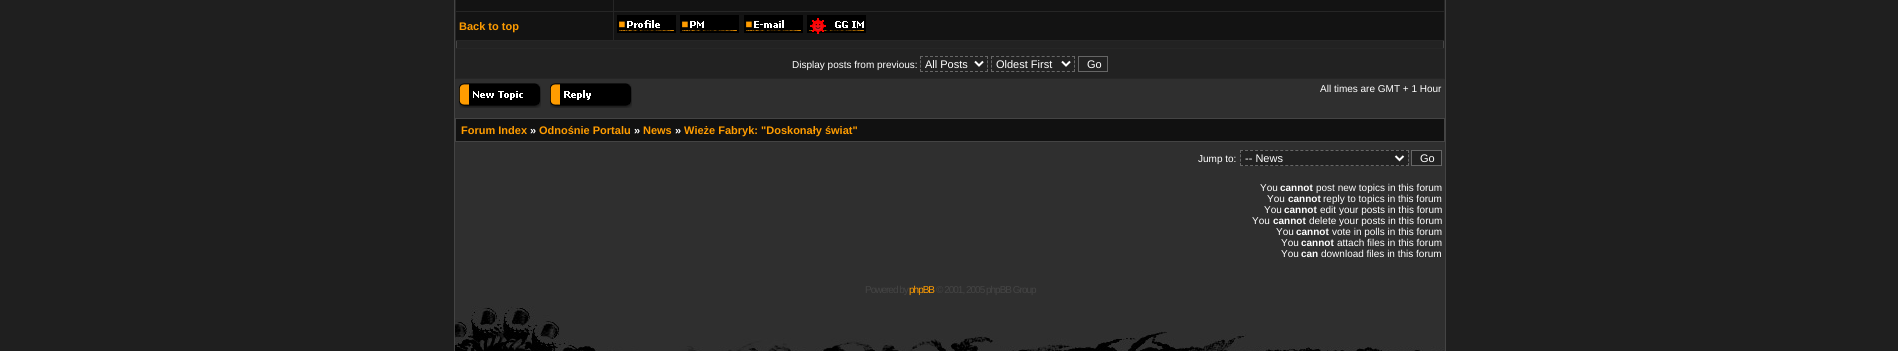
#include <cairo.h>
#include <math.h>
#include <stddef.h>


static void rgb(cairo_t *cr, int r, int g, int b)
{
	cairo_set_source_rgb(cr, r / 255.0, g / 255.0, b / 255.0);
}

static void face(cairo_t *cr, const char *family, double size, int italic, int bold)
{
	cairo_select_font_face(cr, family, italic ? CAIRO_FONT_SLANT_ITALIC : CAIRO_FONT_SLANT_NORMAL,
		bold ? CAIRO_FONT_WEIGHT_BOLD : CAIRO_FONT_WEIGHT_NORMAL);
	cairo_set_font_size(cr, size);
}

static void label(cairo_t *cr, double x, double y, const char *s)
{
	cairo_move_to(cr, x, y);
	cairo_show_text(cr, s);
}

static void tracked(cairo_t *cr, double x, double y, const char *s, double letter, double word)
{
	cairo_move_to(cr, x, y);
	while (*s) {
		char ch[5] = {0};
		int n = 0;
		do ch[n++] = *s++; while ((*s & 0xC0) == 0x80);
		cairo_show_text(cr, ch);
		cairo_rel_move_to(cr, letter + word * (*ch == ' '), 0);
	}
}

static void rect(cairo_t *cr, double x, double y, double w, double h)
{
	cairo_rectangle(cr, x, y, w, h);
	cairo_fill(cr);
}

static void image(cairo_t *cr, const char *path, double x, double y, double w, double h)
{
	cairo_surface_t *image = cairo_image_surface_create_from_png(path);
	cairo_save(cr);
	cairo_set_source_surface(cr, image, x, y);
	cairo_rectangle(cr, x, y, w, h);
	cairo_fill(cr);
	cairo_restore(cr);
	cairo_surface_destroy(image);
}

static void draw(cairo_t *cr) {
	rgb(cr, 31, 31, 31);
	cairo_paint(cr);
	rgb(cr, 47, 47, 47);
	rect(cr, 455, 79, 990, 272);
	rgb(cr, 68, 68, 68);
	rect(cr, 1445, 0, 1, 351);
	rect(cr, 454, 0, 1, 351);
	rgb(cr, 38, 38, 38);
	rect(cr, 455, 0, 990, 79);
	rgb(cr, 19, 19, 19);
	rect(cr, 456, 0, 157, 11);
	rect(cr, 614, 0, 830, 11);
	rect(cr, 456, 12, 157, 28);
	face(cr, "Liberation Sans", 11, 0, 1);
	rgb(cr, 255, 156, 0);
	label(cr, 459, 30, "Back to top");
	rgb(cr, 19, 19, 19);
	rect(cr, 614, 12, 830, 28);
	image(cr, "image0.png", 617, 15, 59, 18);
	image(cr, "image1.png", 680, 15, 59, 18);
	image(cr, "image2.png", 744, 15, 59, 18);
	image(cr, "image3.png", 807, 15, 59, 18);
	image(cr, "image4.png", 810, 18, 16, 16);
	rgb(cr, 34, 34, 34);
	rect(cr, 457, 41, 986, 7);
	rgb(cr, 68, 68, 68);
	rect(cr, 1443, 41, 1, 7);
	rect(cr, 456, 41, 1, 7);
	rgb(cr, 34, 34, 34);
	rect(cr, 456, 49, 988, 29);
	face(cr, "Liberation Sans", 10, 0, 0);
	rgb(cr, 255, 255, 255);
	label(cr, 792, 68, "Display posts from previous:");
	cairo_new_path(cr);
	cairo_move_to(cr, 920, 56.5);
	cairo_line_to(cr, 988, 56.5);
	rgb(cr, 102, 102, 102);
	cairo_set_line_width(cr, 1);
	cairo_set_dash(cr, (double[]){3, 2}, 2, 0);
	cairo_stroke(cr);
	cairo_new_path(cr);
	cairo_move_to(cr, 987.5, 56);
	cairo_line_to(cr, 987.5, 72);
	cairo_set_dash(cr, (double[]){3, 1.33}, 2, 0);
	cairo_stroke(cr);
	cairo_new_path(cr);
	cairo_move_to(cr, 920, 71.5);
	cairo_line_to(cr, 988, 71.5);
	cairo_set_dash(cr, (double[]){3, 2}, 2, 0);
	cairo_stroke(cr);
	cairo_new_path(cr);
	cairo_move_to(cr, 920.5, 56);
	cairo_line_to(cr, 920.5, 72);
	cairo_set_dash(cr, (double[]){3, 1.33}, 2, 0);
	cairo_stroke(cr);
	cairo_new_path(cr);
	cairo_move_to(cr, 975, 61.5);
	cairo_line_to(cr, 979, 65.5);
	cairo_line_to(cr, 983, 61.5);
	rgb(cr, 255, 255, 255);
	cairo_set_line_width(cr, 2);
	cairo_set_dash(cr, NULL, 0, 0);
	cairo_stroke(cr);
	face(cr, "Liberation Sans", 11, 0, 0);
	label(cr, 925, 68, "All Posts");
	cairo_new_path(cr);
	cairo_move_to(cr, 991, 56.5);
	cairo_line_to(cr, 1075, 56.5);
	rgb(cr, 102, 102, 102);
	cairo_set_line_width(cr, 1);
	cairo_set_dash(cr, (double[]){3, 2.06}, 2, 0);
	cairo_stroke(cr);
	cairo_new_path(cr);
	cairo_move_to(cr, 1074.5, 56);
	cairo_line_to(cr, 1074.5, 72);
	cairo_set_dash(cr, (double[]){3, 1.33}, 2, 0);
	cairo_stroke(cr);
	cairo_new_path(cr);
	cairo_move_to(cr, 991, 71.5);
	cairo_line_to(cr, 1075, 71.5);
	cairo_set_dash(cr, (double[]){3, 2.06}, 2, 0);
	cairo_stroke(cr);
	cairo_new_path(cr);
	cairo_move_to(cr, 991.5, 56);
	cairo_line_to(cr, 991.5, 72);
	cairo_set_dash(cr, (double[]){3, 1.33}, 2, 0);
	cairo_stroke(cr);
	cairo_new_path(cr);
	cairo_move_to(cr, 1062, 61.5);
	cairo_line_to(cr, 1066, 65.5);
	cairo_line_to(cr, 1070, 61.5);
	rgb(cr, 255, 255, 255);
	cairo_set_line_width(cr, 2);
	cairo_set_dash(cr, NULL, 0, 0);
	cairo_stroke(cr);
	label(cr, 996, 68, "Oldest First");
	cairo_rectangle(cr, 1078.5, 56.5, 29, 15);
	rgb(cr, 102, 102, 102);
	cairo_set_line_width(cr, 1);
	cairo_stroke(cr);
	rgb(cr, 255, 255, 255);
	label(cr, 1087, 68, "Go");
	image(cr, "image5.png", 459, 83, 82, 25);
	image(cr, "image6.png", 550, 83, 82, 25);
	face(cr, "Liberation Sans", 10, 0, 0);
	label(cr, 1320, 92, "All times are GMT + 1 Hour");
	rgb(cr, 17, 17, 17);
	cairo_rectangle(cr, 455.5, 118.5, 989, 23);
	cairo_fill_preserve(cr);
	rgb(cr, 68, 68, 68);
	cairo_stroke(cr);
	face(cr, "Liberation Sans", 11, 0, 1);
	rgb(cr, 255, 156, 0);
	label(cr, 461, 134, "Forum Index");
	rgb(cr, 255, 255, 255);
	label(cr, 530, 134, "»");
	rgb(cr, 255, 156, 0);
	label(cr, 539, 134, "Odnośnie Portalu");
	rgb(cr, 255, 255, 255);
	label(cr, 634, 134, "»");
	rgb(cr, 255, 156, 0);
	label(cr, 643, 134, "News");
	rgb(cr, 255, 255, 255);
	label(cr, 675, 134, "»");
	rgb(cr, 255, 156, 0);
	label(cr, 684, 134, "Wieże Fabryk: \"Doskonały świat\"");
	face(cr, "Liberation Sans", 10, 0, 0);
	rgb(cr, 255, 255, 255);
	label(cr, 1198, 162, "Jump to:");
	rgb(cr, 34, 34, 34);
	rect(cr, 1240, 150, 169, 16);
	cairo_new_path(cr);
	cairo_move_to(cr, 1240, 150.5);
	cairo_line_to(cr, 1409, 150.5);
	rgb(cr, 102, 102, 102);
	cairo_set_dash(cr, (double[]){3, 2.03}, 2, 0);
	cairo_stroke(cr);
	cairo_new_path(cr);
	cairo_move_to(cr, 1408.5, 150);
	cairo_line_to(cr, 1408.5, 166);
	cairo_set_dash(cr, (double[]){3, 1.33}, 2, 0);
	cairo_stroke(cr);
	cairo_new_path(cr);
	cairo_move_to(cr, 1240, 165.5);
	cairo_line_to(cr, 1409, 165.5);
	cairo_set_dash(cr, (double[]){3, 2.03}, 2, 0);
	cairo_stroke(cr);
	cairo_new_path(cr);
	cairo_move_to(cr, 1240.5, 150);
	cairo_line_to(cr, 1240.5, 166);
	cairo_set_dash(cr, (double[]){3, 1.33}, 2, 0);
	cairo_stroke(cr);
	cairo_new_path(cr);
	cairo_move_to(cr, 1395.5, 156);
	cairo_line_to(cr, 1399.5, 160);
	cairo_line_to(cr, 1403.5, 156);
	rgb(cr, 255, 255, 255);
	cairo_set_line_width(cr, 2);
	cairo_set_dash(cr, NULL, 0, 0);
	cairo_stroke(cr);
	face(cr, "Liberation Sans", 11, 0, 0);
	label(cr, 1245, 162, "-- News");
	rgb(cr, 34, 34, 34);
	cairo_rectangle(cr, 1411.5, 150.5, 30, 15);
	cairo_fill_preserve(cr);
	rgb(cr, 102, 102, 102);
	cairo_set_line_width(cr, 1);
	cairo_stroke(cr);
	rgb(cr, 255, 255, 255);
	label(cr, 1420, 162, "Go");
	face(cr, "Liberation Sans", 10, 0, 0);
	label(cr, 1260, 191, "You");
	face(cr, "Liberation Sans", 10, 0, 1);
	label(cr, 1280, 191, "cannot");
	face(cr, "Liberation Sans", 10, 0, 0);
	label(cr, 1316, 191, "post new topics in this forum");
	label(cr, 1267, 202, "You");
	face(cr, "Liberation Sans", 10, 0, 1);
	label(cr, 1288, 202, "cannot");
	face(cr, "Liberation Sans", 10, 0, 0);
	label(cr, 1323, 202, "reply to topics in this forum");
	label(cr, 1264, 213, "You");
	face(cr, "Liberation Sans", 10, 0, 1);
	label(cr, 1284, 213, "cannot");
	face(cr, "Liberation Sans", 10, 0, 0);
	label(cr, 1320, 213, "edit your posts in this forum");
	label(cr, 1252, 224, "You");
	face(cr, "Liberation Sans", 10, 0, 1);
	label(cr, 1273, 224, "cannot");
	face(cr, "Liberation Sans", 10, 0, 0);
	label(cr, 1309, 224, "delete your posts in this forum");
	label(cr, 1276, 235, "You");
	face(cr, "Liberation Sans", 10, 0, 1);
	label(cr, 1296, 235, "cannot");
	face(cr, "Liberation Sans", 10, 0, 0);
	label(cr, 1332, 235, "vote in polls in this forum");
	label(cr, 1281, 246, "You");
	face(cr, "Liberation Sans", 10, 0, 1);
	label(cr, 1301, 246, "cannot");
	face(cr, "Liberation Sans", 10, 0, 0);
	label(cr, 1337, 246, "attach files in this forum");
	label(cr, 1281, 257, "You");
	face(cr, "Liberation Sans", 10, 0, 1);
	label(cr, 1301, 257, "can");
	face(cr, "Liberation Sans", 10, 0, 0);
	label(cr, 1321, 257, "download files in this forum");
	rgb(cr, 68, 68, 68);
	tracked(cr, 865, 293, "Powered by", -1, 0);
	rgb(cr, 255, 156, 0);
	tracked(cr, 909, 293, "phpBB", -1, 0);
	rgb(cr, 68, 68, 68);
	tracked(cr, 936, 293, "© 2001, 2005 phpBB Group", -1, 0);
	image(cr, "image7.png", 455, 306, 989, 45);
}

int main(void) {
	cairo_surface_t *surface = cairo_image_surface_create(CAIRO_FORMAT_RGB24, 1898, 351);
	cairo_t *cr = cairo_create(surface);
	cairo_font_options_t *options = cairo_font_options_create();
	cairo_font_options_set_hint_metrics(options, CAIRO_HINT_METRICS_OFF);
	cairo_font_options_set_hint_style(options, CAIRO_HINT_STYLE_NONE);
	cairo_set_font_options(cr, options);
	cairo_set_miter_limit(cr, 4);
	draw(cr);
	cairo_surface_write_to_png(surface, "render.png");
	cairo_font_options_destroy(options);
	cairo_destroy(cr);
	cairo_surface_destroy(surface);
	return 0;
}
